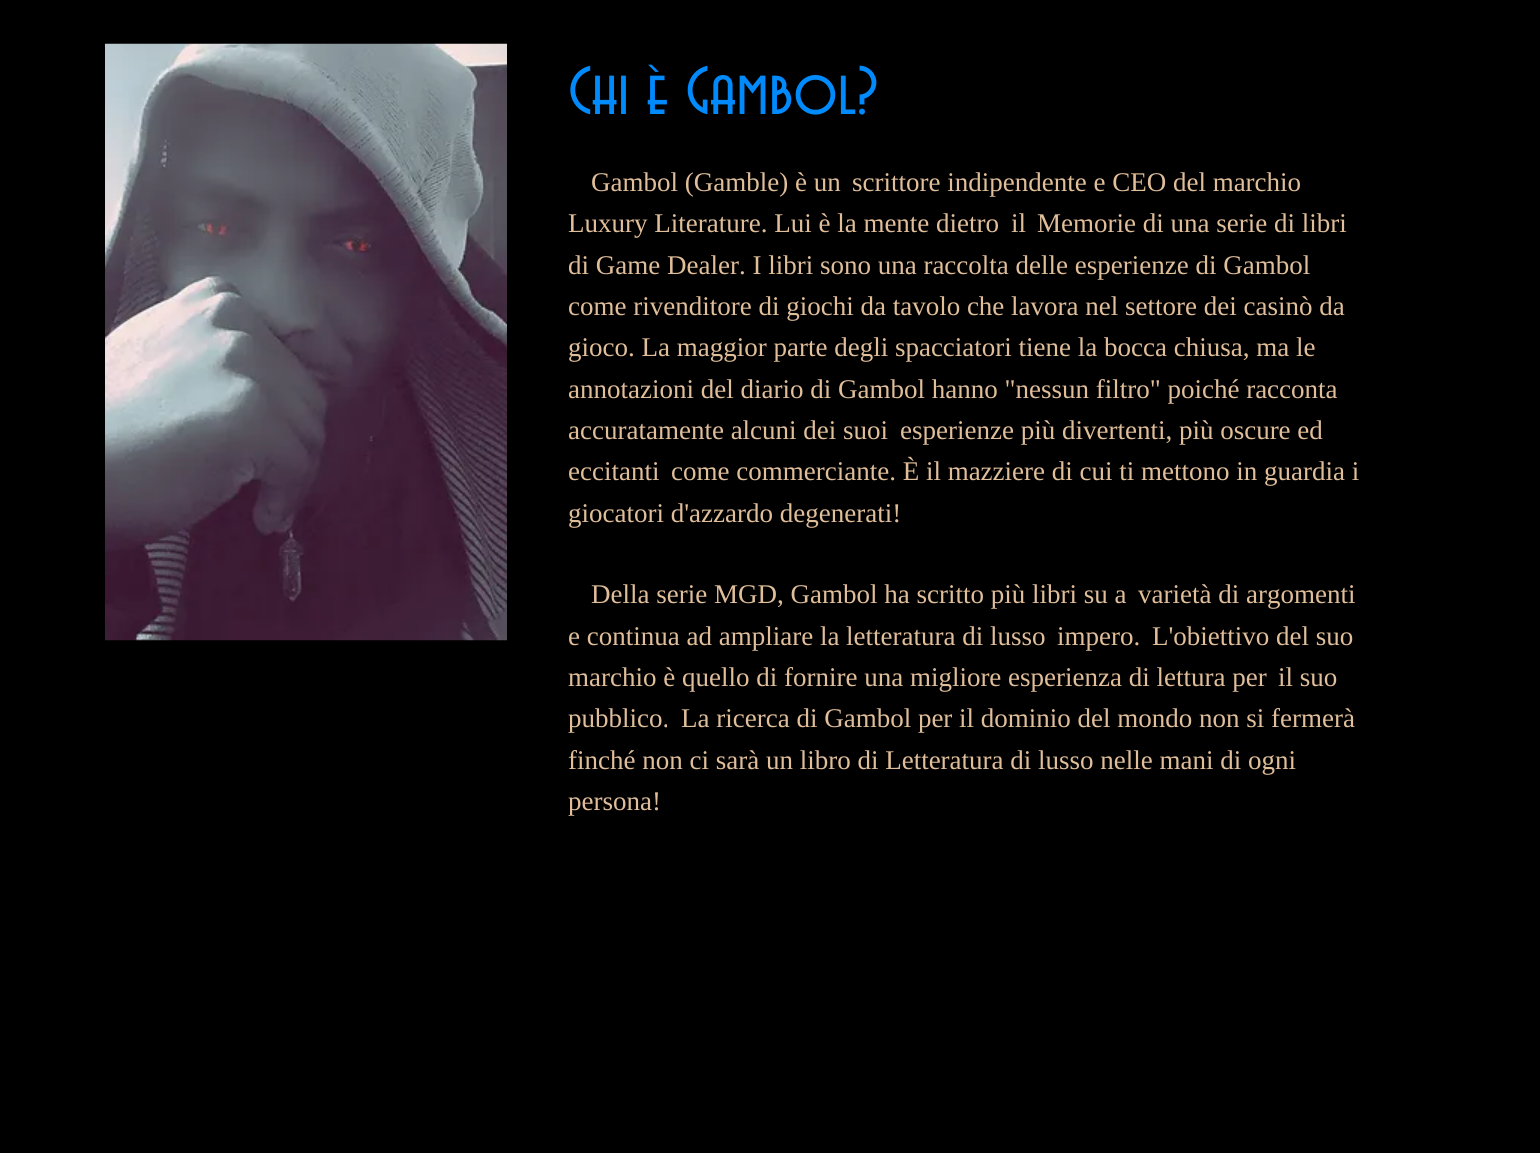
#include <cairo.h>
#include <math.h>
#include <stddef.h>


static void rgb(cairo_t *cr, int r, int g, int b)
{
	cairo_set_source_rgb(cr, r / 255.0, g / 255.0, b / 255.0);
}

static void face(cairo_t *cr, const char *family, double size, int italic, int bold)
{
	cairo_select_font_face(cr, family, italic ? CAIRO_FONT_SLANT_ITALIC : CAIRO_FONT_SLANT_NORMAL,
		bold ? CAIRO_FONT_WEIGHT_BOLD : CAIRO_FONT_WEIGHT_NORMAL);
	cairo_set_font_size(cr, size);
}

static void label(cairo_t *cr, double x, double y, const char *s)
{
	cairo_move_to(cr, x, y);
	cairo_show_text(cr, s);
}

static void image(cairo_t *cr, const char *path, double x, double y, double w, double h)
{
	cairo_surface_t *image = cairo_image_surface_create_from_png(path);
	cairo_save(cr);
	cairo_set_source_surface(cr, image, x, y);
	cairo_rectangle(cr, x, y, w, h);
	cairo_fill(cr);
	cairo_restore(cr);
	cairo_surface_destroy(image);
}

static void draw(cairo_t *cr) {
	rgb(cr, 0, 0, 0);
	cairo_paint(cr);
	image(cr, "image0.png", 105, 43, 402, 598);
	face(cr, "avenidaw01", 72, 0, 0);
	rgb(cr, 0, 138, 252);
	label(cr, 568, 114, "Chi è Gambol?");
	face(cr, "Liberation Serif", 27, 0, 0);
	rgb(cr, 224, 190, 154);
	label(cr, 591, 191, "Gambol (Gamble) è un");
	label(cr, 852, 191, "scrittore indipendente e CEO del marchio");
	label(cr, 568, 232, "Luxury Literature. Lui è la mente dietro");
	label(cr, 1011, 232, "il");
	label(cr, 1037, 232, "Memorie di una serie di libri");
	label(cr, 568, 274, "di Game Dealer. I libri sono una raccolta delle esperienze di Gambol");
	label(cr, 568, 315, "come rivenditore di giochi da tavolo che lavora nel settore dei casinò da");
	label(cr, 568, 356, "gioco. La maggior parte degli spacciatori tiene la bocca chiusa, ma le");
	label(cr, 568, 398, "annotazioni del diario di Gambol hanno \"nessun filtro\" poiché racconta");
	label(cr, 568, 439, "accuratamente alcuni dei suoi");
	label(cr, 900, 439, "esperienze più divertenti, più oscure ed");
	label(cr, 568, 480, "eccitanti");
	label(cr, 671, 480, "come commerciante. È il mazziere di cui ti mettono in guardia i");
	label(cr, 568, 522, "giocatori d'azzardo degenerati!");
	label(cr, 591, 603, "Della serie MGD, Gambol ha scritto più libri su a");
	label(cr, 1138, 603, "varietà di argomenti");
	label(cr, 568, 645, "e continua ad ampliare la letteratura di lusso");
	label(cr, 1057, 645, "impero.");
	label(cr, 1152, 645, "L'obiettivo del suo");
	label(cr, 568, 686, "marchio è quello di fornire una migliore esperienza di lettura per");
	label(cr, 1278, 686, "il suo");
	label(cr, 568, 727, "pubblico.");
	label(cr, 681, 727, "La ricerca di Gambol per il dominio del mondo non si fermerà");
	label(cr, 568, 769, "finché non ci sarà un libro di Letteratura di lusso nelle mani di ogni");
	label(cr, 568, 810, "persona!");
}

int main(void) {
	cairo_surface_t *surface = cairo_image_surface_create(CAIRO_FORMAT_RGB24, 1540, 1153);
	cairo_t *cr = cairo_create(surface);
	cairo_font_options_t *options = cairo_font_options_create();
	cairo_font_options_set_hint_metrics(options, CAIRO_HINT_METRICS_OFF);
	cairo_font_options_set_hint_style(options, CAIRO_HINT_STYLE_NONE);
	cairo_set_font_options(cr, options);
	cairo_set_miter_limit(cr, 4);
	draw(cr);
	cairo_surface_write_to_png(surface, "render.png");
	cairo_font_options_destroy(options);
	cairo_destroy(cr);
	cairo_surface_destroy(surface);
	return 0;
}
